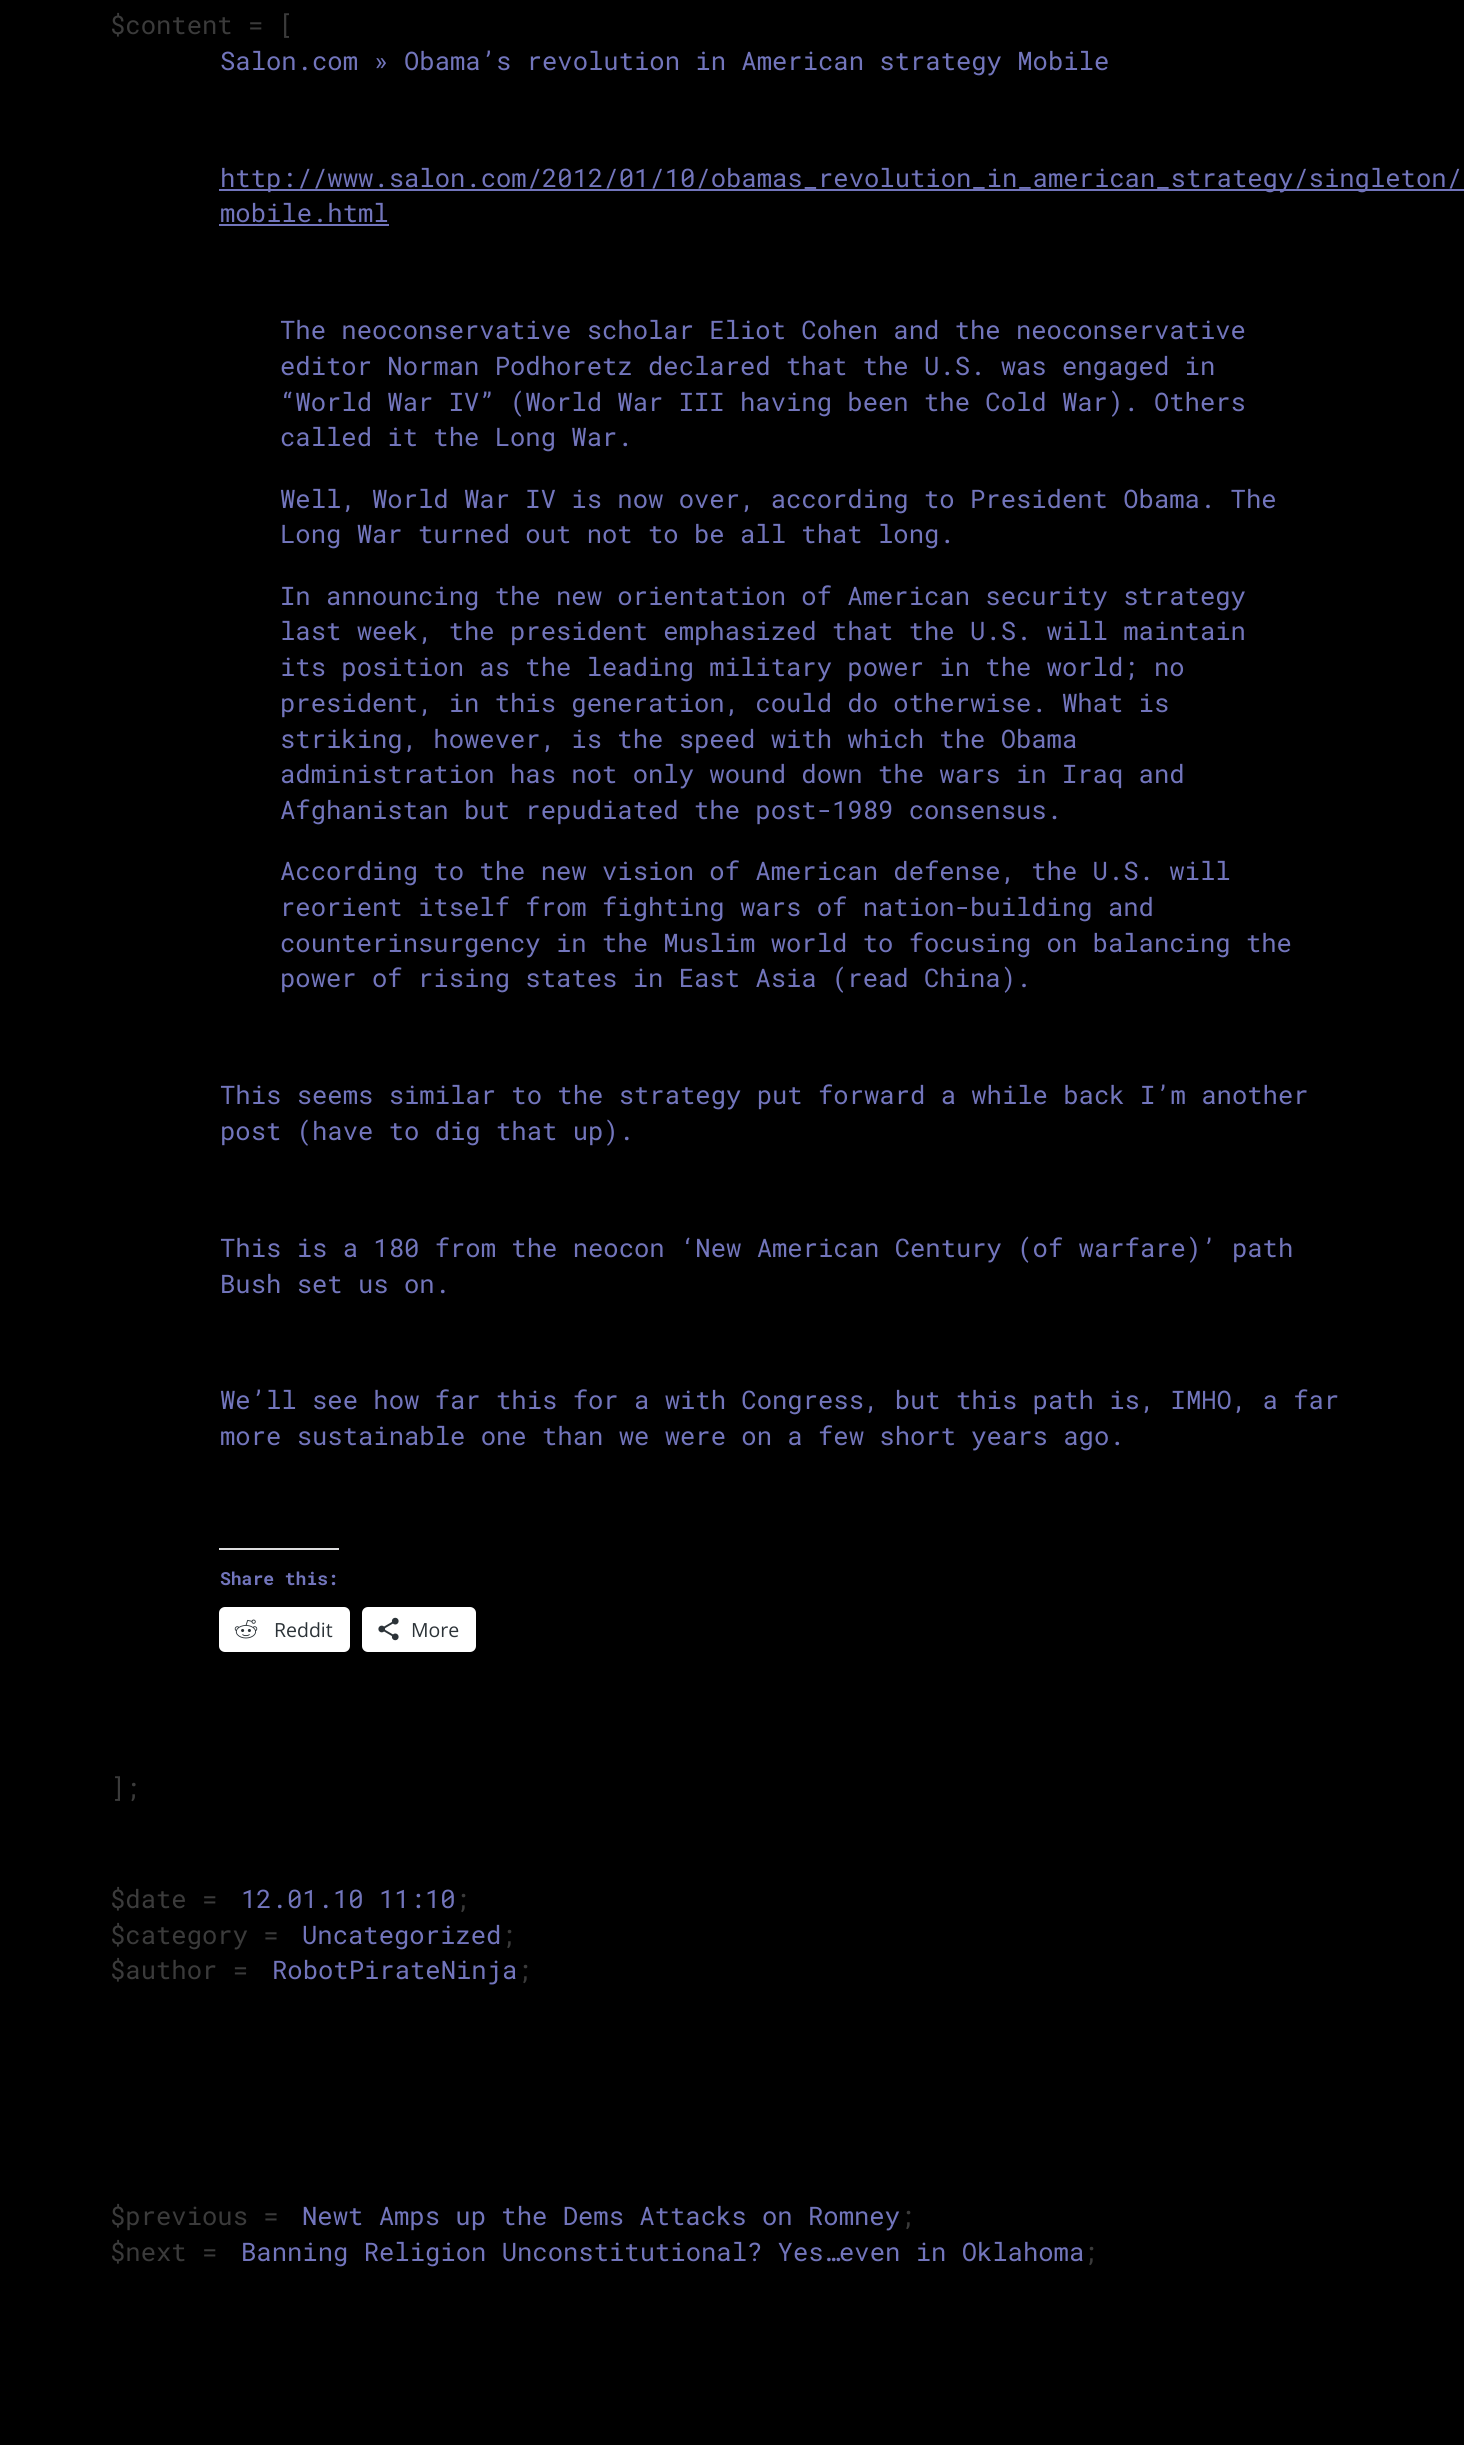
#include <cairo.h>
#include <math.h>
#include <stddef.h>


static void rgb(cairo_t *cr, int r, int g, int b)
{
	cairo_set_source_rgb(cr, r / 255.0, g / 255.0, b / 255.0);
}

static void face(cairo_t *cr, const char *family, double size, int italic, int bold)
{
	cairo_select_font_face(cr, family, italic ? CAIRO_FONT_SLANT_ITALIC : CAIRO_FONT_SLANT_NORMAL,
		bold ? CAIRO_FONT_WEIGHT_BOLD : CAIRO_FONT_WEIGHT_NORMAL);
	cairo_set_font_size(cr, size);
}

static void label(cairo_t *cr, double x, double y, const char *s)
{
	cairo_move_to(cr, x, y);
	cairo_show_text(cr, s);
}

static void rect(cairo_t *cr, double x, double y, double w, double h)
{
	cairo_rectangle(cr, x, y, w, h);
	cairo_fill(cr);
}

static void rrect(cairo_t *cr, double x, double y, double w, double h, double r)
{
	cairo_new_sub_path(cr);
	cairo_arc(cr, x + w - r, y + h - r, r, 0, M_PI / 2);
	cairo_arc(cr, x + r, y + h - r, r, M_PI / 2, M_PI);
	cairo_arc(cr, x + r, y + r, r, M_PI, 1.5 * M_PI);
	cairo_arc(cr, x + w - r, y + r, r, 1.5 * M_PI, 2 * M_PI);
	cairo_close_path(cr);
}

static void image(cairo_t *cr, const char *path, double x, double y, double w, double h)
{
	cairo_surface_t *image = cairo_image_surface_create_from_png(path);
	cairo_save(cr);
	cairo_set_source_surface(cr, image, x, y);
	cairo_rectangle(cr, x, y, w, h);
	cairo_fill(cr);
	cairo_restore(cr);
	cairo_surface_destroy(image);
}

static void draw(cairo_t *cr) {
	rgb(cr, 0, 0, 0);
	cairo_paint(cr);
	face(cr, "Roboto Mono", 25.55, 0, 0);
	rgb(cr, 59, 59, 59);
	label(cr, 110, 34, "$content = [");
	rgb(cr, 114, 117, 188);
	label(cr, 220, 70, "Salon.com » Obama’s revolution in American strategy Mobile");
	rect(cr, 219, 189, 1245, 2);
	label(cr, 220, 187, "http://www.salon.com/2012/01/10/obamas_revolution_in_american_strategy/singleton/");
	label(cr, 220, 222, "mobile.html");
	rect(cr, 219, 224, 170, 2);
	label(cr, 280, 339, "The neoconservative scholar Eliot Cohen and the neoconservative");
	label(cr, 280, 375, "editor Norman Podhoretz declared that the U.S. was engaged in");
	label(cr, 280, 411, "“World War IV” (World War III having been the Cold War). Others");
	label(cr, 280, 446, "called it the Long War.");
	label(cr, 280, 508, "Well, World War IV is now over, according to President Obama. The");
	label(cr, 280, 543, "Long War turned out not to be all that long.");
	label(cr, 280, 605, "In announcing the new orientation of American security strategy");
	label(cr, 280, 640, "last week, the president emphasized that the U.S. will maintain");
	label(cr, 280, 676, "its position as the leading military power in the world; no");
	label(cr, 280, 712, "president, in this generation, could do otherwise. What is");
	label(cr, 280, 748, "striking, however, is the speed with which the Obama");
	label(cr, 280, 783, "administration has not only wound down the wars in Iraq and");
	label(cr, 280, 819, "Afghanistan but repudiated the post-1989 consensus.");
	label(cr, 280, 880, "According to the new vision of American defense, the U.S. will");
	label(cr, 280, 916, "reorient itself from fighting wars of nation-building and");
	label(cr, 280, 952, "counterinsurgency in the Muslim world to focusing on balancing the");
	label(cr, 280, 987, "power of rising states in East Asia (read China).");
	label(cr, 220, 1104, "This seems similar to the strategy put forward a while back I’m another");
	label(cr, 220, 1140, "post (have to dig that up).");
	label(cr, 220, 1257, "This is a 180 from the neocon ‘New American Century (of warfare)’ path");
	label(cr, 220, 1293, "Bush set us on.");
	label(cr, 220, 1409, "We’ll see how far this for a with Congress, but this path is, IMHO, a far");
	label(cr, 220, 1445, "more sustainable one than we were on a few short years ago.");
	rgb(cr, 220, 220, 222);
	rect(cr, 219, 1548, 120, 2);
	face(cr, "Roboto Mono", 18, 0, 1);
	rgb(cr, 114, 117, 188);
	label(cr, 220, 1585, "Share this:");
	rgb(cr, 255, 255, 255);
	rrect(cr, 219, 1607, 131, 45, 6);
	cairo_fill(cr);
	image(cr, "image0.png", 234, 1619, 24, 20);
	face(cr, "Open Sans", 19.5, 0, 0);
	rgb(cr, 44, 51, 56);
	label(cr, 274, 1637, "Reddit");
	rgb(cr, 255, 255, 255);
	rrect(cr, 362, 1607, 114, 45, 6);
	cairo_fill(cr);
	image(cr, "image1.png", 378, 1617, 21, 24);
	rgb(cr, 44, 51, 56);
	label(cr, 411, 1637, "More");
	face(cr, "Roboto Mono", 25.55, 0, 0);
	rgb(cr, 59, 59, 59);
	label(cr, 110, 1797, "];");
	label(cr, 110, 1908, "$date =");
	rgb(cr, 114, 117, 188);
	label(cr, 241, 1908, "12.01.10 11:10");
	rgb(cr, 59, 59, 59);
	label(cr, 455, 1908, ";");
	label(cr, 110, 1944, "$category =");
	rgb(cr, 114, 117, 188);
	label(cr, 302, 1944, "Uncategorized");
	rgb(cr, 59, 59, 59);
	label(cr, 501, 1944, ";");
	label(cr, 110, 1979, "$author =");
	rgb(cr, 114, 117, 188);
	label(cr, 272, 1979, "RobotPirateNinja");
	rgb(cr, 59, 59, 59);
	label(cr, 517, 1979, ";");
	label(cr, 110, 2225, "$previous =");
	rgb(cr, 114, 117, 188);
	label(cr, 302, 2225, "Newt Amps up the Dems Attacks on Romney");
	rgb(cr, 59, 59, 59);
	label(cr, 900, 2225, ";");
	label(cr, 110, 2261, "$next =");
	rgb(cr, 114, 117, 188);
	label(cr, 241, 2261, "Banning Religion Unconstitutional? Yes…even in Oklahoma");
	rgb(cr, 59, 59, 59);
	label(cr, 1083, 2261, ";");
}

int main(void) {
	cairo_surface_t *surface = cairo_image_surface_create(CAIRO_FORMAT_RGB24, 1464, 2445);
	cairo_t *cr = cairo_create(surface);
	cairo_font_options_t *options = cairo_font_options_create();
	cairo_font_options_set_hint_metrics(options, CAIRO_HINT_METRICS_OFF);
	cairo_font_options_set_hint_style(options, CAIRO_HINT_STYLE_NONE);
	cairo_set_font_options(cr, options);
	cairo_set_miter_limit(cr, 4);
	draw(cr);
	cairo_surface_write_to_png(surface, "render.png");
	cairo_font_options_destroy(options);
	cairo_destroy(cr);
	cairo_surface_destroy(surface);
	return 0;
}
